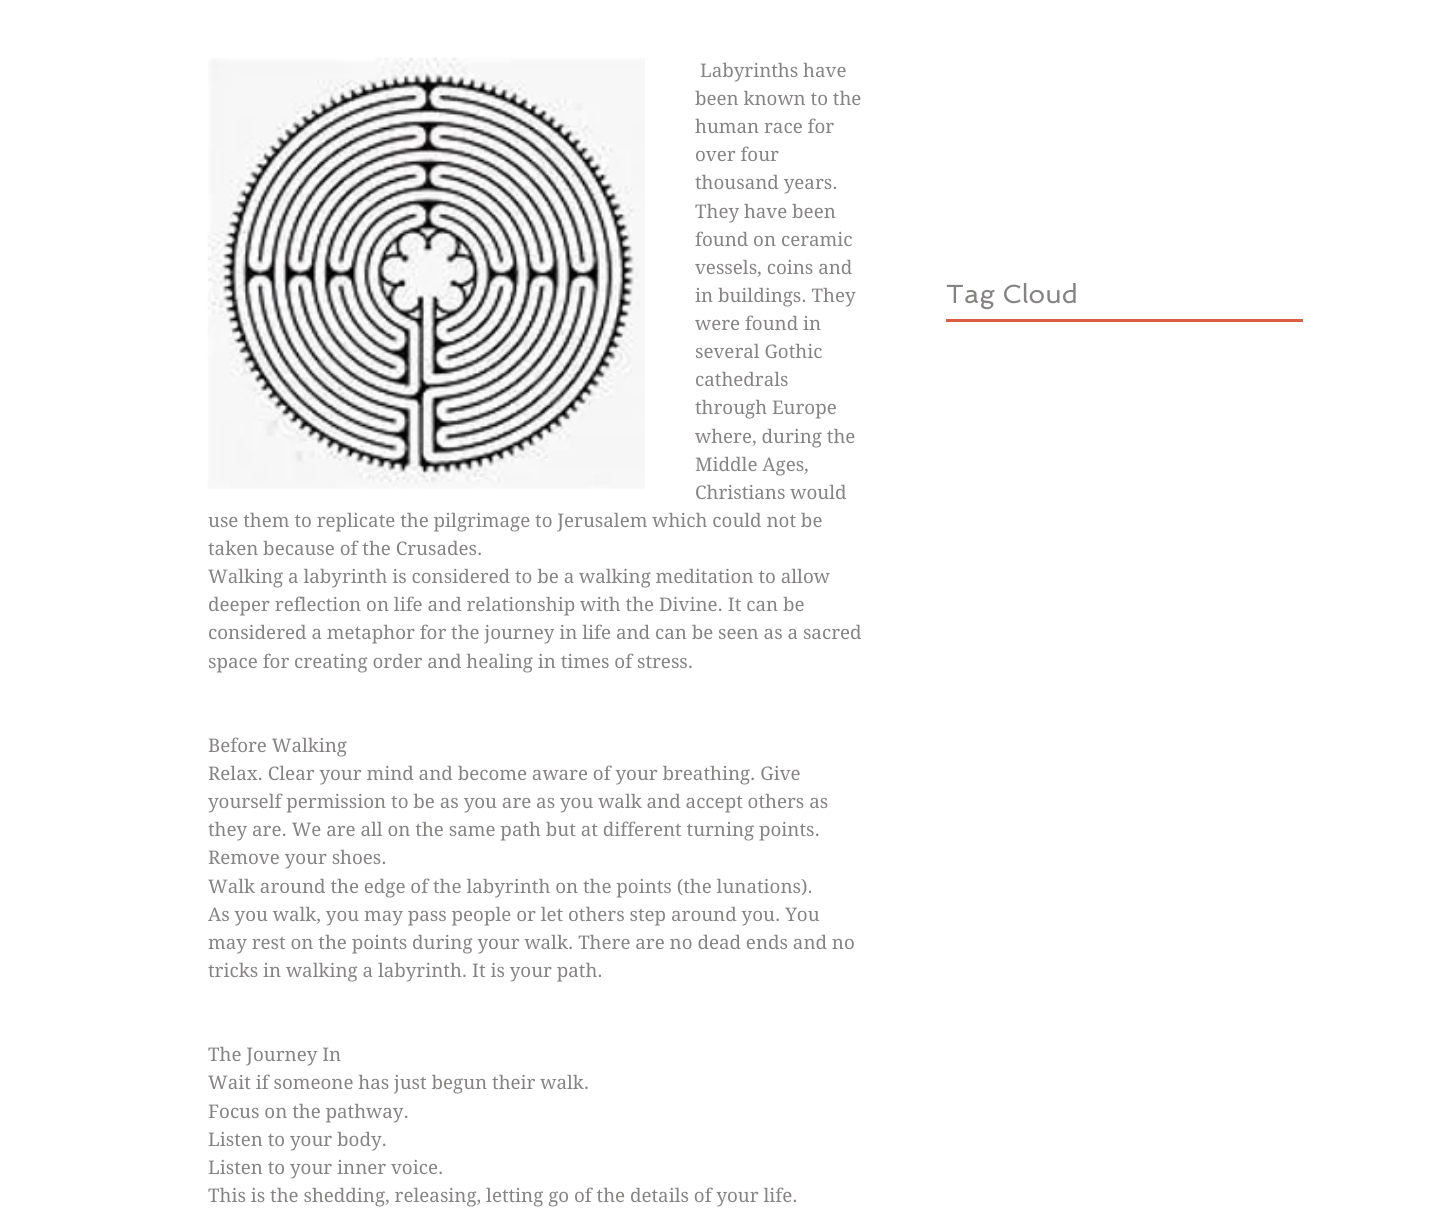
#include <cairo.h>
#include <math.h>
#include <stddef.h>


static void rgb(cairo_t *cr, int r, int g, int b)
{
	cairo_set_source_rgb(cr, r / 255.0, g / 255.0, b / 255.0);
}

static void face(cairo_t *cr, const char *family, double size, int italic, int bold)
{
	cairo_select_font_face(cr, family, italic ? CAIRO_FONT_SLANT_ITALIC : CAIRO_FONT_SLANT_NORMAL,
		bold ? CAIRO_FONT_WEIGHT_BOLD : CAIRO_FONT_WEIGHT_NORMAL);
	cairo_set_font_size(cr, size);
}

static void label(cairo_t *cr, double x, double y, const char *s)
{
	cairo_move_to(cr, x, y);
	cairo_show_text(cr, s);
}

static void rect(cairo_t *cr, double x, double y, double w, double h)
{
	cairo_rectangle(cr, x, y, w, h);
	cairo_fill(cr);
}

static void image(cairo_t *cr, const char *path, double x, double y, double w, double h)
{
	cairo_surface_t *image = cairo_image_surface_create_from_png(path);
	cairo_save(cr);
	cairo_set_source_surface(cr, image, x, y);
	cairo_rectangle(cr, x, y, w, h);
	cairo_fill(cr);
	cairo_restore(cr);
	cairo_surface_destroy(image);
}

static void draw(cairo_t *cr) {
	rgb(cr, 255, 255, 255);
	cairo_paint(cr);
	image(cr, "image0.png", 207, 57, 438, 432);
	face(cr, "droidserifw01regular", 18.75, 0, 0);
	rgb(cr, 134, 131, 131);
	label(cr, 700, 77, "Labyrinths have");
	label(cr, 695, 105, "been known to the");
	label(cr, 695, 133, "human race for");
	label(cr, 695, 161, "over four");
	label(cr, 695, 189, "thousand years.");
	label(cr, 695, 218, "They have been");
	label(cr, 695, 246, "found on ceramic");
	label(cr, 695, 274, "vessels, coins and");
	label(cr, 695, 302, "in buildings. They");
	label(cr, 695, 330, "were found in");
	label(cr, 695, 358, "several Gothic");
	label(cr, 695, 386, "cathedrals");
	label(cr, 695, 414, "through Europe");
	label(cr, 695, 443, "where, during the");
	label(cr, 695, 471, "Middle Ages,");
	label(cr, 695, 499, "Christians would");
	label(cr, 208, 527, "use them to replicate the pilgrimage to Jerusalem which could not be");
	label(cr, 208, 555, "taken because of the Crusades.");
	label(cr, 208, 583, "Walking a labyrinth is considered to be a walking meditation to allow");
	label(cr, 208, 611, "deeper reflection on life and relationship with the Divine. It can be");
	label(cr, 208, 639, "considered a metaphor for the journey in life and can be seen as a sacred");
	label(cr, 208, 668, "space for creating order and healing in times of stress.");
	label(cr, 208, 752, "Before Walking");
	label(cr, 208, 780, "Relax. Clear your mind and become aware of your breathing. Give");
	label(cr, 208, 808, "yourself permission to be as you are as you walk and accept others as");
	label(cr, 208, 836, "they are. We are all on the same path but at different turning points.");
	label(cr, 208, 864, "Remove your shoes.");
	label(cr, 208, 893, "Walk around the edge of the labyrinth on the points (the lunations).");
	label(cr, 208, 921, "As you walk, you may pass people or let others step around you. You");
	label(cr, 208, 949, "may rest on the points during your walk. There are no dead ends and no");
	label(cr, 208, 977, "tricks in walking a labyrinth. It is your path.");
	label(cr, 208, 1061, "The Journey In");
	label(cr, 208, 1089, "Wait if someone has just begun their walk.");
	label(cr, 208, 1118, "Focus on the pathway.");
	label(cr, 208, 1146, "Listen to your body.");
	label(cr, 208, 1174, "Listen to your inner voice.");
	label(cr, 208, 1202, "This is the shedding, releasing, letting go of the details of your life.");
	face(cr, "Spinnaker", 26.25, 0, 0);
	label(cr, 946, 303, "Tag Cloud");
	rgb(cr, 219, 91, 67);
	rect(cr, 946, 319, 357, 3);
}

int main(void) {
	cairo_surface_t *surface = cairo_image_surface_create(CAIRO_FORMAT_RGB24, 1454, 1209);
	cairo_t *cr = cairo_create(surface);
	cairo_font_options_t *options = cairo_font_options_create();
	cairo_font_options_set_hint_metrics(options, CAIRO_HINT_METRICS_OFF);
	cairo_font_options_set_hint_style(options, CAIRO_HINT_STYLE_NONE);
	cairo_set_font_options(cr, options);
	cairo_set_miter_limit(cr, 4);
	draw(cr);
	cairo_surface_write_to_png(surface, "render.png");
	cairo_font_options_destroy(options);
	cairo_destroy(cr);
	cairo_surface_destroy(surface);
	return 0;
}
